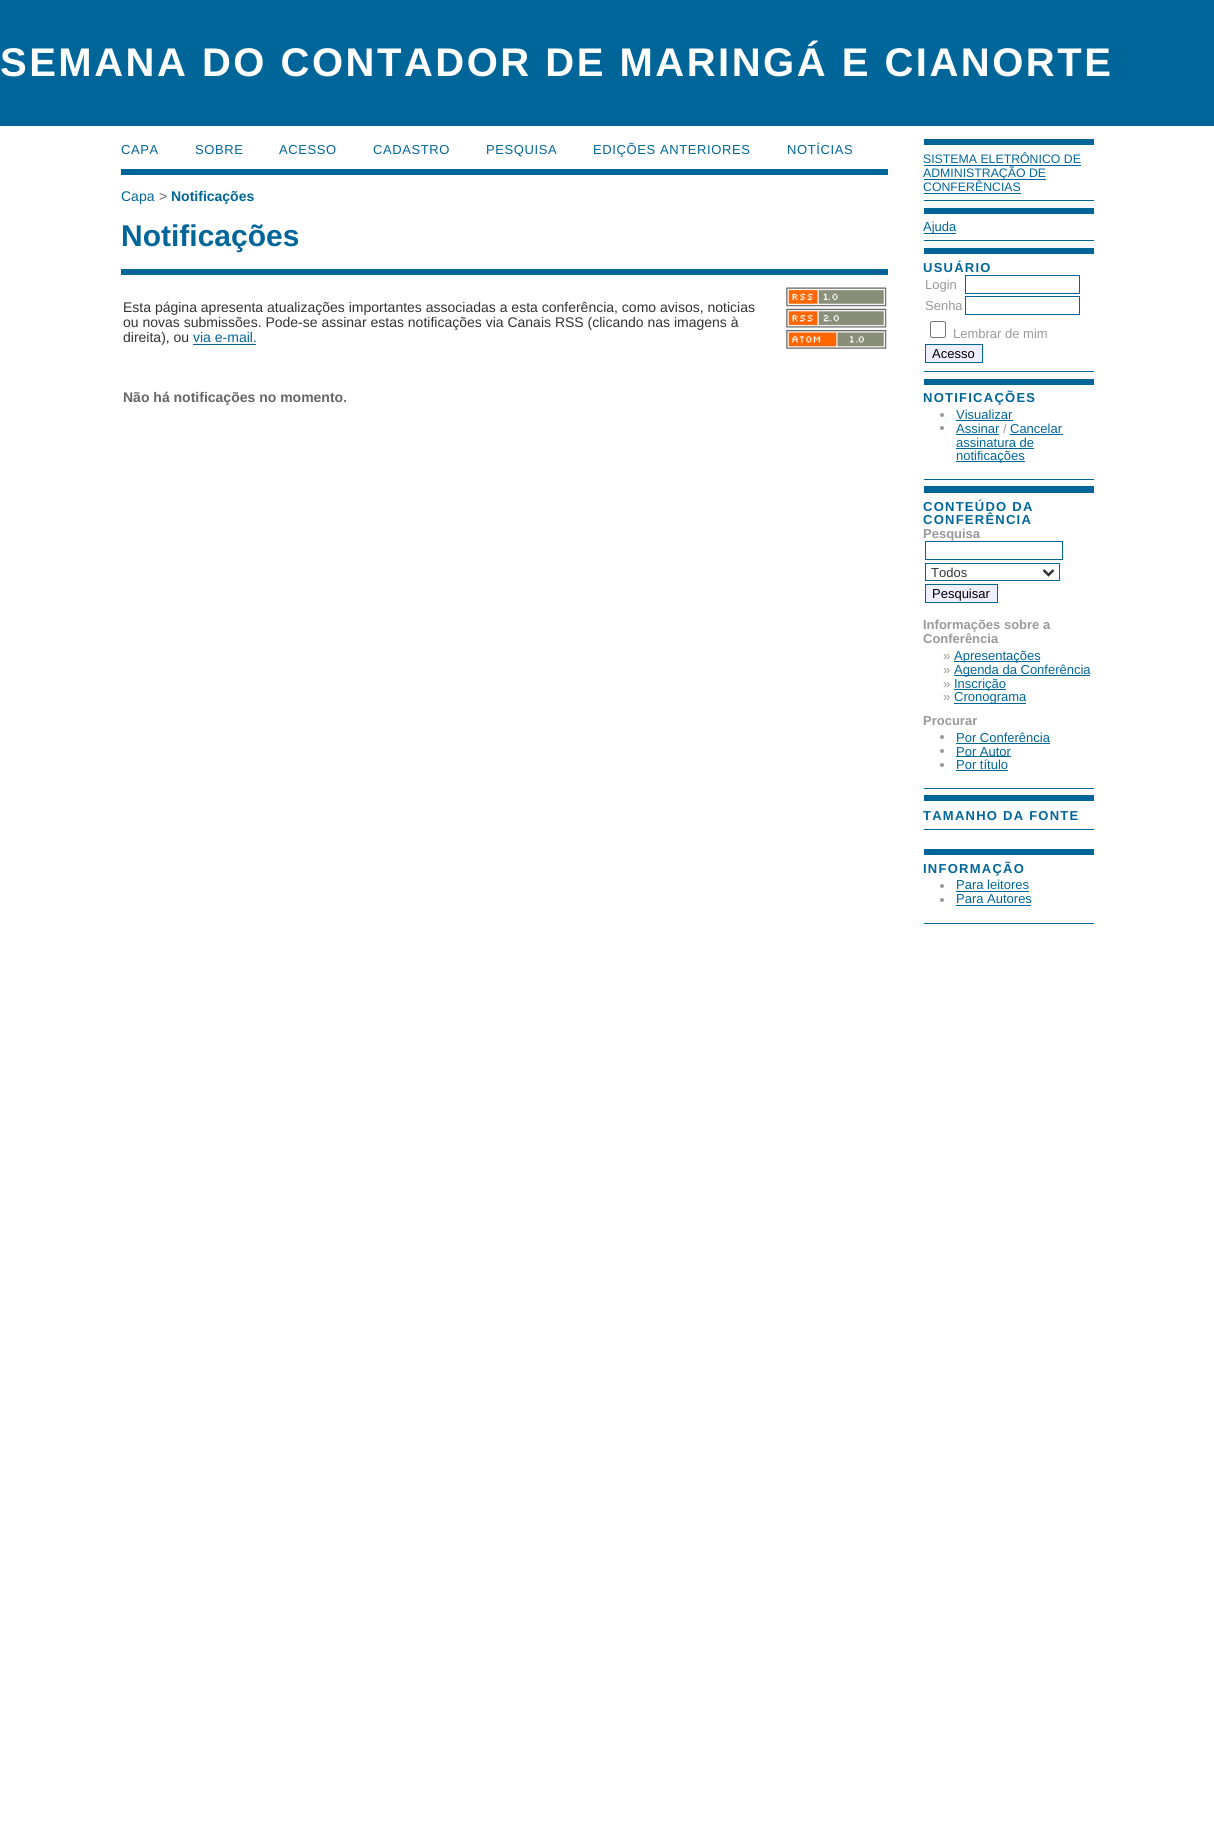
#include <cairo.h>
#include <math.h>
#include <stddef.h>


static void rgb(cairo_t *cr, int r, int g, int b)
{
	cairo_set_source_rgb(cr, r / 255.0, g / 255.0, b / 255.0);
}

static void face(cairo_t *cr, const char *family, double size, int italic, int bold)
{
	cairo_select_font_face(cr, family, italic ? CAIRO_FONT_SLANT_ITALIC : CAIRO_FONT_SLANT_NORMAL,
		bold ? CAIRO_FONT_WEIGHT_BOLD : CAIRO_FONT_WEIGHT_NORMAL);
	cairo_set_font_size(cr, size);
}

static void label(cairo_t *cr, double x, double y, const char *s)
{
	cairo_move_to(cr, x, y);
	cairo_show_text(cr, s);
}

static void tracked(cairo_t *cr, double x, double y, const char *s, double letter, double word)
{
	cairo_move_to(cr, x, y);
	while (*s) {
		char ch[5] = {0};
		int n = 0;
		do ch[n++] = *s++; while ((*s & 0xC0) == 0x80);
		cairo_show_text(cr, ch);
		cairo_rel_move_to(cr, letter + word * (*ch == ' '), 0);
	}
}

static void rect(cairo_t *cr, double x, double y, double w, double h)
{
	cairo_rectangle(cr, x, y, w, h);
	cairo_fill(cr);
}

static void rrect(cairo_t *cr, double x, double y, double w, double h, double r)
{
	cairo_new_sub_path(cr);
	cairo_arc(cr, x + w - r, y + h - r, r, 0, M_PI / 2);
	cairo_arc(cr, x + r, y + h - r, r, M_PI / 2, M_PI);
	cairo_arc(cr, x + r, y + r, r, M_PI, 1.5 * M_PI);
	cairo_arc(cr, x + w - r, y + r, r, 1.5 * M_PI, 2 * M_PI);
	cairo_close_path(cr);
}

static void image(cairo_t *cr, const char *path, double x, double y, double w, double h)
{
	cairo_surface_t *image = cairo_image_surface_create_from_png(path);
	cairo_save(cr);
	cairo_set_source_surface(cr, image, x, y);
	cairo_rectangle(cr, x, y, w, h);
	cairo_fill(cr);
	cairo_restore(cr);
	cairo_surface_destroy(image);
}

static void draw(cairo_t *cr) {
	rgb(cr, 255, 255, 255);
	cairo_paint(cr);
	rgb(cr, 0, 102, 153);
	rect(cr, 0, 0, 1214, 126);
	face(cr, "Liberation Sans", 40, 0, 1);
	rgb(cr, 255, 255, 255);
	tracked(cr, 0, 76, "SEMANA DO CONTADOR DE MARINGÁ E CIANORTE", 2.5, 0);
	rgb(cr, 0, 102, 153);
	rect(cr, 121, 169, 767, 6);
	face(cr, "Liberation Sans", 13, 0, 0);
	tracked(cr, 121, 154, "CAPA", 0.6, 0);
	tracked(cr, 195, 154, "SOBRE", 0.6, 0);
	tracked(cr, 279, 154, "ACESSO", 0.6, 0);
	tracked(cr, 373, 154, "CADASTRO", 0.6, 0);
	tracked(cr, 486, 154, "PESQUISA", 0.6, 0);
	tracked(cr, 593, 154, "EDIÇÕES ANTERIORES", 0.6, 0);
	tracked(cr, 787, 154, "NOTÍCIAS", 0.6, 0);
	face(cr, "Liberation Sans", 14, 0, 0);
	label(cr, 121, 201, "Capa");
	rgb(cr, 102, 102, 102);
	label(cr, 159, 201, ">");
	face(cr, "Liberation Sans", 14, 0, 1);
	rgb(cr, 0, 102, 153);
	label(cr, 171, 201, "Notificações");
	face(cr, "Liberation Sans", 30, 0, 1);
	label(cr, 121, 246, "Notificações");
	rect(cr, 121, 269, 767, 6);
	face(cr, "Liberation Sans", 14, 0, 0);
	rgb(cr, 51, 51, 51);
	label(cr, 123, 312, "Esta página apresenta atualizações importantes associadas a esta conferência, como avisos, noticias");
	label(cr, 123, 327, "ou novas submissões. Pode-se assinar estas notificações via Canais RSS (clicando nas imagens à");
	label(cr, 123, 342, "direita), ou");
	rgb(cr, 0, 102, 153);
	label(cr, 193, 342, "via e-mail.");
	rect(cr, 193, 344, 63, 1);
	image(cr, "image0.png", 786, 287, 101, 20);
	image(cr, "image1.png", 786, 308, 101, 20);
	image(cr, "image2.png", 786, 330, 101, 19);
	face(cr, "Liberation Sans", 14, 0, 1);
	rgb(cr, 102, 102, 102);
	label(cr, 123, 402, "Não há notificações no momento.");
	rgb(cr, 0, 102, 153);
	rect(cr, 924, 139, 170, 6);
	rect(cr, 924, 200, 170, 1);
	face(cr, "Liberation Sans", 12.3, 0, 0);
	label(cr, 923, 163, "SISTEMA ELETRÔNICO DE");
	rect(cr, 924, 165, 157, 1);
	rect(cr, 924, 179, 122, 1);
	label(cr, 923, 177, "ADMINISTRAÇÃO DE");
	label(cr, 923, 191, "CONFERÊNCIAS");
	rect(cr, 924, 193, 97, 1);
	rect(cr, 924, 208, 170, 6);
	rect(cr, 924, 240, 170, 1);
	rect(cr, 924, 233, 32, 1);
	face(cr, "Liberation Sans", 13, 0, 0);
	label(cr, 923, 231, "Ajuda");
	rect(cr, 924, 248, 170, 6);
	rect(cr, 924, 371, 170, 1);
	face(cr, "Liberation Sans", 13, 0, 1);
	tracked(cr, 923, 272, "USUÁRIO", 1.25, 0);
	face(cr, "Liberation Sans", 13, 0, 0);
	rgb(cr, 153, 153, 153);
	label(cr, 925, 289, "Login");
	cairo_rectangle(cr, 965.5, 275.5, 114, 18);
	rgb(cr, 0, 102, 153);
	cairo_set_line_width(cr, 1);
	cairo_stroke(cr);
	rgb(cr, 153, 153, 153);
	label(cr, 925, 310, "Senha");
	cairo_rectangle(cr, 965.5, 296.5, 114, 18);
	rgb(cr, 0, 102, 153);
	cairo_stroke(cr);
	rrect(cr, 930.5, 321.5, 15, 16, 2);
	rgb(cr, 118, 118, 118);
	cairo_stroke(cr);
	rgb(cr, 153, 153, 153);
	label(cr, 953, 338, "Lembrar de mim");
	rgb(cr, 238, 238, 255);
	cairo_rectangle(cr, 925.5, 344.5, 57, 18);
	cairo_fill_preserve(cr);
	rgb(cr, 0, 102, 153);
	cairo_stroke(cr);
	rgb(cr, 0, 0, 0);
	label(cr, 932, 358, "Acesso");
	rgb(cr, 0, 102, 153);
	rect(cr, 924, 379, 170, 6);
	rect(cr, 924, 479, 170, 1);
	face(cr, "Liberation Sans", 13, 0, 1);
	tracked(cr, 923, 402, "NOTIFICAÇÕES", 1.25, 0);
	rgb(cr, 153, 153, 153);
	cairo_new_path(cr);
	cairo_arc(cr, 942, 415, 2, 0, 2 * M_PI);
	cairo_fill(cr);
	face(cr, "Liberation Sans", 13, 0, 0);
	rgb(cr, 0, 102, 153);
	label(cr, 956, 419, "Visualizar");
	rect(cr, 956, 420, 57, 1);
	rgb(cr, 153, 153, 153);
	cairo_new_path(cr);
	cairo_arc(cr, 942, 428, 2, 0, 2 * M_PI);
	cairo_fill(cr);
	rgb(cr, 0, 102, 153);
	label(cr, 956, 433, "Assinar");
	rect(cr, 956, 434, 43, 1);
	rgb(cr, 153, 153, 153);
	label(cr, 1003, 433, "/");
	rgb(cr, 0, 102, 153);
	label(cr, 1010, 433, "Cancelar");
	rect(cr, 1010, 434, 53, 1);
	label(cr, 956, 447, "assinatura de");
	rect(cr, 956, 448, 78, 1);
	rect(cr, 956, 461, 69, 1);
	label(cr, 956, 460, "notificações");
	rect(cr, 924, 486, 170, 7);
	rect(cr, 924, 788, 170, 1);
	face(cr, "Liberation Sans", 13, 0, 1);
	tracked(cr, 923, 511, "CONTEÚDO DA", 1.25, 0);
	tracked(cr, 923, 524, "CONFERÊNCIA", 1.25, 0);
	rgb(cr, 153, 153, 153);
	label(cr, 923, 538, "Pesquisa");
	cairo_rectangle(cr, 925.5, 541.5, 137, 18);
	rgb(cr, 0, 102, 153);
	cairo_stroke(cr);
	cairo_rectangle(cr, 925.5, 563.5, 134, 17);
	cairo_stroke(cr);
	cairo_new_path(cr);
	cairo_move_to(cr, 1043.5, 570);
	cairo_line_to(cr, 1048.5, 575);
	cairo_line_to(cr, 1053.5, 570);
	rgb(cr, 51, 51, 51);
	cairo_set_line_width(cr, 2.5);
	cairo_stroke(cr);
	face(cr, "Liberation Sans", 13, 0, 0);
	label(cr, 931, 577, "Todos");
	rgb(cr, 238, 238, 255);
	cairo_rectangle(cr, 925.5, 584.5, 72, 18);
	cairo_fill_preserve(cr);
	rgb(cr, 0, 102, 153);
	cairo_set_line_width(cr, 1);
	cairo_stroke(cr);
	rgb(cr, 0, 0, 0);
	label(cr, 932, 598, "Pesquisar");
	face(cr, "Liberation Sans", 13, 0, 1);
	rgb(cr, 153, 153, 153);
	label(cr, 923, 629, "Informações sobre a");
	label(cr, 923, 643, "Conferência");
	face(cr, "Liberation Sans", 13, 0, 0);
	label(cr, 943, 660, "»");
	rgb(cr, 0, 102, 153);
	rect(cr, 954, 661, 86, 1);
	label(cr, 954, 660, "Apresentações");
	rgb(cr, 153, 153, 153);
	label(cr, 943, 674, "»");
	rgb(cr, 0, 102, 153);
	rect(cr, 954, 675, 136, 1);
	label(cr, 954, 674, "Agenda da Conferência");
	rgb(cr, 153, 153, 153);
	label(cr, 943, 688, "»");
	rgb(cr, 0, 102, 153);
	rect(cr, 954, 689, 52, 1);
	label(cr, 954, 688, "Inscrição");
	rgb(cr, 153, 153, 153);
	label(cr, 943, 701, "»");
	rgb(cr, 0, 102, 153);
	rect(cr, 954, 703, 72, 1);
	label(cr, 954, 701, "Cronograma");
	face(cr, "Liberation Sans", 13, 0, 1);
	rgb(cr, 153, 153, 153);
	label(cr, 923, 725, "Procurar");
	cairo_new_path(cr);
	cairo_arc(cr, 942, 737, 2, 0, 2 * M_PI);
	cairo_fill(cr);
	face(cr, "Liberation Sans", 13, 0, 0);
	rgb(cr, 0, 102, 153);
	label(cr, 956, 742, "Por Conferência");
	rect(cr, 956, 743, 94, 1);
	rgb(cr, 153, 153, 153);
	cairo_new_path(cr);
	cairo_arc(cr, 942, 751, 2, 0, 2 * M_PI);
	cairo_fill(cr);
	rgb(cr, 0, 102, 153);
	rect(cr, 956, 756, 55, 1);
	label(cr, 956, 756, "Por Autor");
	rgb(cr, 153, 153, 153);
	cairo_new_path(cr);
	cairo_arc(cr, 942, 765, 2, 0, 2 * M_PI);
	cairo_fill(cr);
	rgb(cr, 0, 102, 153);
	label(cr, 956, 769, "Por título");
	rect(cr, 956, 770, 52, 1);
	rect(cr, 924, 795, 170, 6);
	rect(cr, 924, 829, 170, 1);
	face(cr, "Liberation Sans", 13, 0, 1);
	tracked(cr, 923, 820, "TAMANHO DA FONTE", 1.25, 0);
	rect(cr, 924, 849, 170, 6);
	rect(cr, 924, 923, 170, 1);
	tracked(cr, 923, 873, "INFORMAÇÃO", 1.25, 0);
	rgb(cr, 153, 153, 153);
	cairo_new_path(cr);
	cairo_arc(cr, 942, 886, 2, 0, 2 * M_PI);
	cairo_fill(cr);
	face(cr, "Liberation Sans", 13, 0, 0);
	rgb(cr, 0, 102, 153);
	label(cr, 956, 889, "Para leitores");
	rect(cr, 956, 891, 73, 1);
	rgb(cr, 153, 153, 153);
	cairo_new_path(cr);
	cairo_arc(cr, 942, 900, 2, 0, 2 * M_PI);
	cairo_fill(cr);
	rgb(cr, 0, 102, 153);
	label(cr, 956, 903, "Para Autores");
	rect(cr, 956, 905, 75, 1);
}

int main(void) {
	cairo_surface_t *surface = cairo_image_surface_create(CAIRO_FORMAT_RGB24, 1214, 1826);
	cairo_t *cr = cairo_create(surface);
	cairo_font_options_t *options = cairo_font_options_create();
	cairo_font_options_set_hint_metrics(options, CAIRO_HINT_METRICS_OFF);
	cairo_font_options_set_hint_style(options, CAIRO_HINT_STYLE_NONE);
	cairo_set_font_options(cr, options);
	cairo_set_miter_limit(cr, 4);
	draw(cr);
	cairo_surface_write_to_png(surface, "render.png");
	cairo_font_options_destroy(options);
	cairo_destroy(cr);
	cairo_surface_destroy(surface);
	return 0;
}
